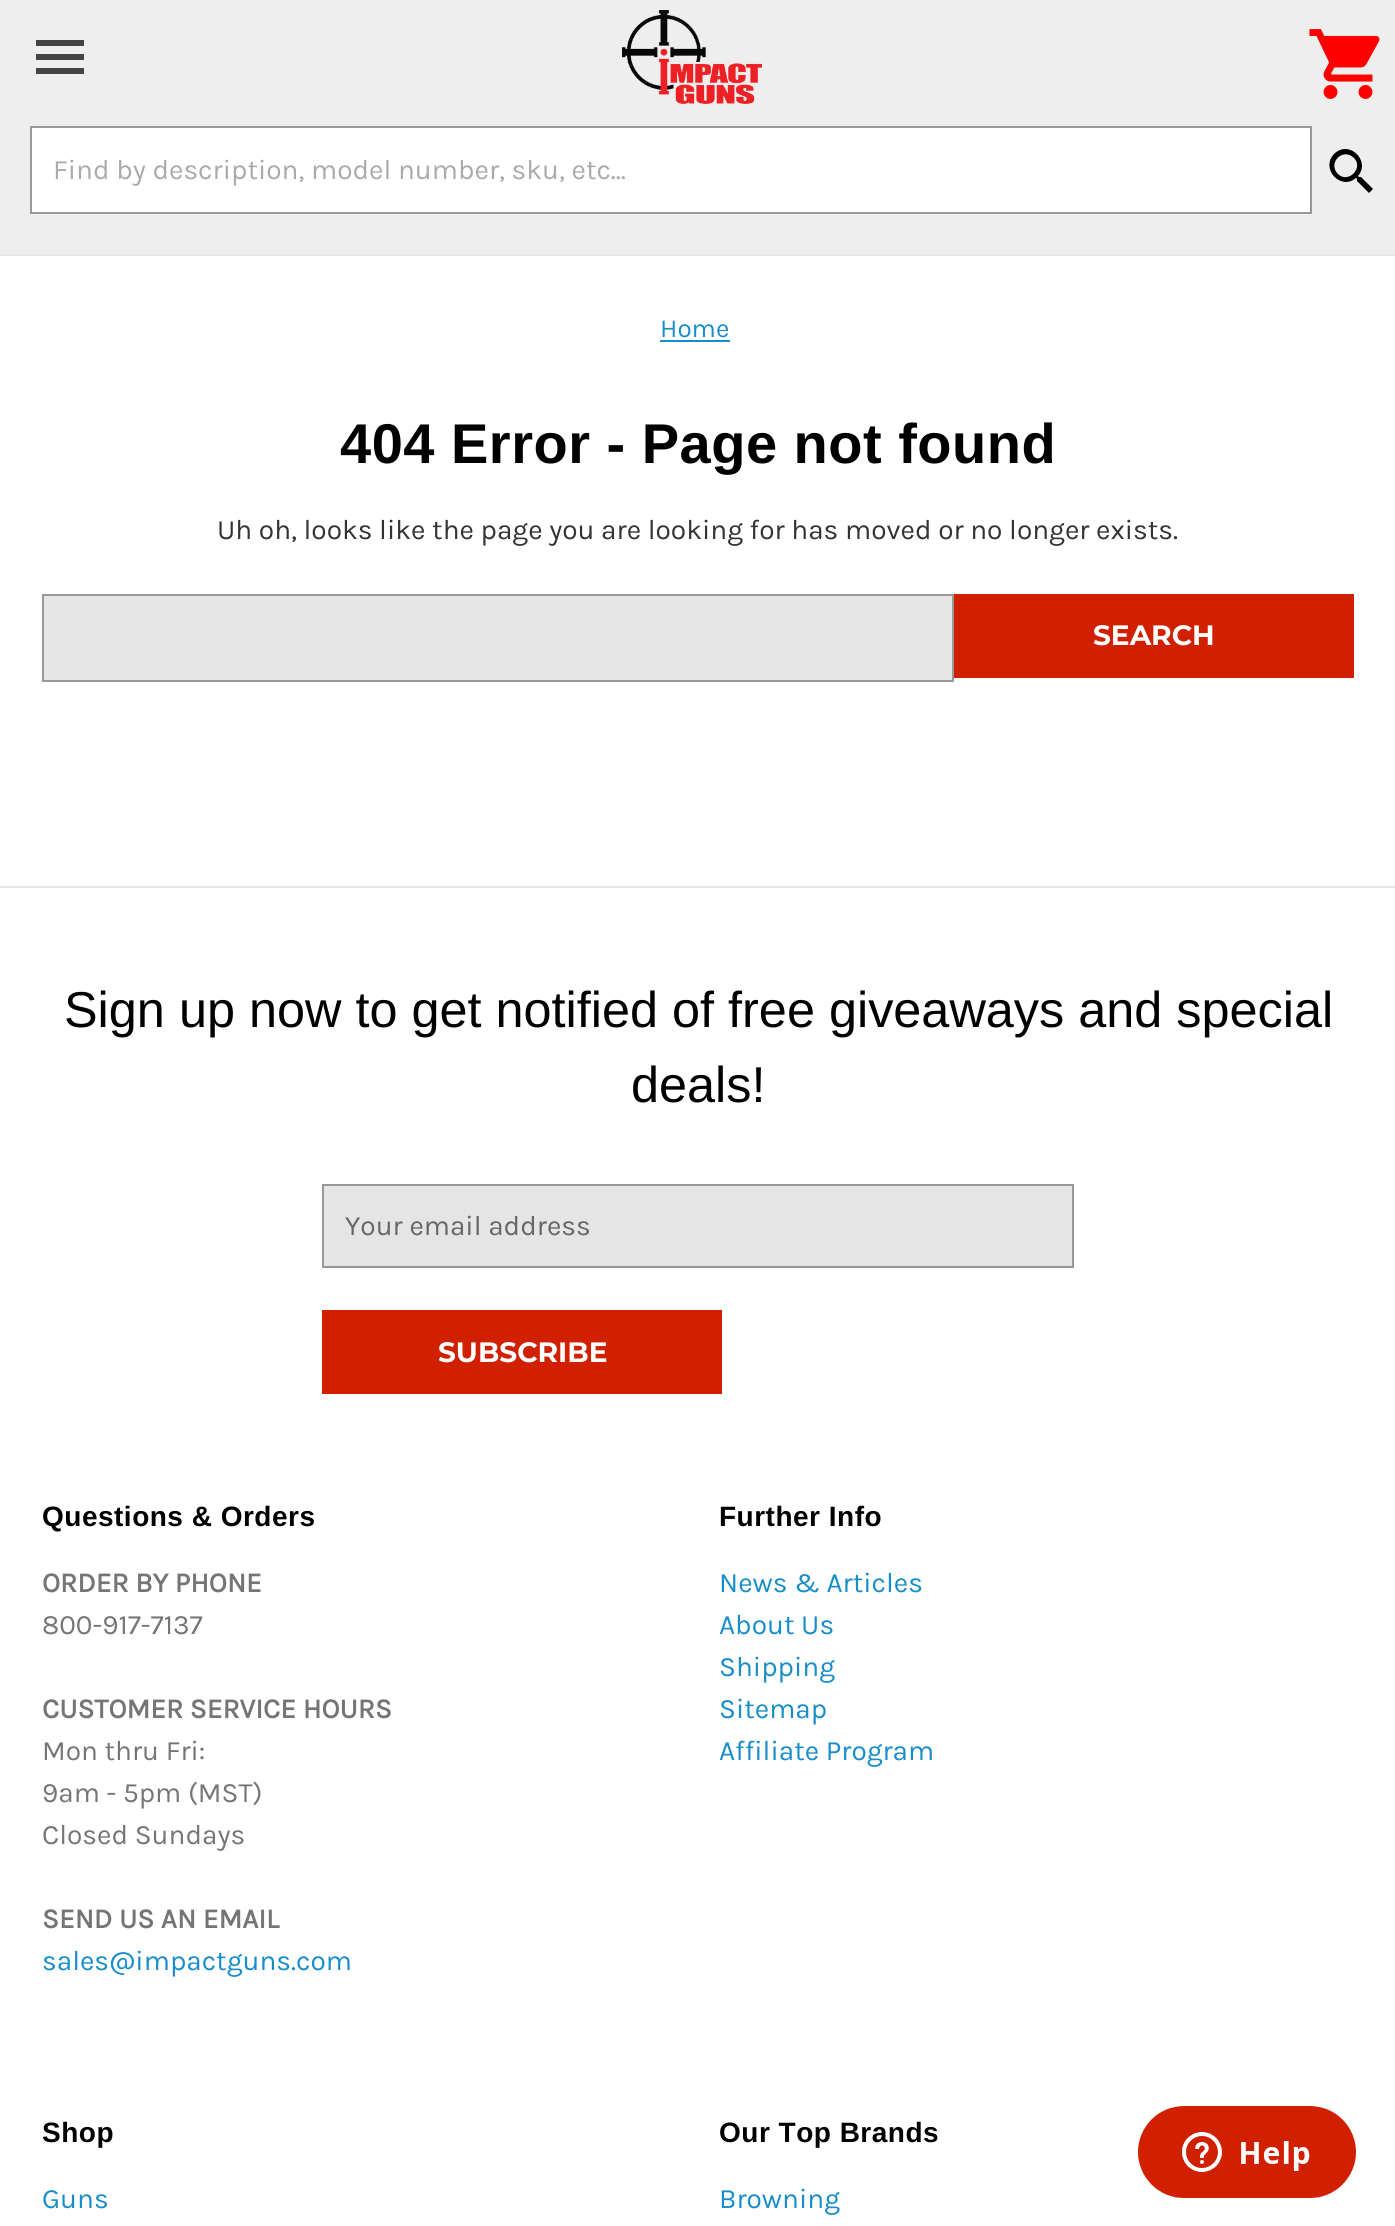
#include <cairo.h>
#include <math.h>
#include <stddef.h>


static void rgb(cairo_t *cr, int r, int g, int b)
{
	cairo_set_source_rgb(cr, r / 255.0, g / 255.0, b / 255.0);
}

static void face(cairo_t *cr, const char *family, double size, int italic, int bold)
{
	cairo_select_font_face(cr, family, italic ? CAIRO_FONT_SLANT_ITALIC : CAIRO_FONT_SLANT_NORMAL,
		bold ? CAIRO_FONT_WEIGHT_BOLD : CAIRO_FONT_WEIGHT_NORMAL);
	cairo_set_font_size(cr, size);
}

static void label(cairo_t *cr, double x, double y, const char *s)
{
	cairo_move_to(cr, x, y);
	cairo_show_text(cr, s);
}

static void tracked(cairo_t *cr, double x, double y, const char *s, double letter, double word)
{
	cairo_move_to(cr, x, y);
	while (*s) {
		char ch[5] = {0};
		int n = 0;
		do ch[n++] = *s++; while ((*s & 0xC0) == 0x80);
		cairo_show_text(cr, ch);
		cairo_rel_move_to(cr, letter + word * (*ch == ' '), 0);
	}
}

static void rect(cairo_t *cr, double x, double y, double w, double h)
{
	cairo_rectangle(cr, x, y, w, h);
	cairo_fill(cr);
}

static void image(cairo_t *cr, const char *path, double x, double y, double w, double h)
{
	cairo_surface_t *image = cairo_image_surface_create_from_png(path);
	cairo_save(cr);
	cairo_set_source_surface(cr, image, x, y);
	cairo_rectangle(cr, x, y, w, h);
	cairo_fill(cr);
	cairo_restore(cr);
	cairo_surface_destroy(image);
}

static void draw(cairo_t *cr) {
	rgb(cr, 255, 255, 255);
	cairo_paint(cr);
	rgb(cr, 229, 229, 229);
	rect(cr, 0, 254, 1395, 2);
	rgb(cr, 238, 238, 238);
	rect(cr, 0, 0, 1395, 254);
	rgb(cr, 68, 68, 68);
	rect(cr, 36, 54, 48, 6);
	rect(cr, 36, 40, 48, 6);
	rect(cr, 36, 68, 48, 6);
	image(cr, "image0.png", 622, 10, 140, 94);
	image(cr, "image1.png", 1309, 29, 71, 70);
	rgb(cr, 255, 255, 255);
	cairo_rectangle(cr, 31, 127, 1280, 86);
	cairo_fill_preserve(cr);
	rgb(cr, 153, 153, 153);
	cairo_stroke(cr);
	face(cr, "Karla", 28, 0, 0);
	rgb(cr, 170, 170, 170);
	label(cr, 53, 179, "Find by description, model number, sku, etc...");
	rgb(cr, 0, 0, 0);
	cairo_new_path(cr);
	cairo_move_to(cr, 1338, 174);
	cairo_curve_to(cr, 1348, 184, 1364, 168, 1354, 158);
	cairo_curve_to(cr, 1343, 147, 1327, 163, 1338, 174);
	cairo_close_path(cr);
	cairo_move_to(cr, 1361, 177);
	cairo_line_to(cr, 1373, 189);
	cairo_line_to(cr, 1369, 193);
	cairo_line_to(cr, 1357, 181);
	cairo_line_to(cr, 1357, 179);
	cairo_line_to(cr, 1356, 178);
	cairo_curve_to(cr, 1341, 191, 1320, 169, 1334, 154);
	cairo_curve_to(cr, 1349, 139, 1371, 161, 1358, 176);
	cairo_line_to(cr, 1359, 177);
	cairo_close_path(cr);
	cairo_fill(cr);
	face(cr, "Karla", 26, 0, 0);
	rgb(cr, 23, 141, 201);
	label(cr, 660, 337, "Home");
	rect(cr, 660, 340, 70, 2);
	face(cr, "Liberation Sans", 56, 0, 1);
	rgb(cr, 0, 0, 0);
	tracked(cr, 340, 463, "404 Error - Page not found", 0.5, 0);
	face(cr, "Karla", 28, 0, 0);
	rgb(cr, 51, 51, 51);
	label(cr, 217, 539, "Uh oh, looks like the page you are looking for has moved or no longer exists.");
	rgb(cr, 229, 229, 229);
	cairo_rectangle(cr, 43, 595, 910, 86);
	cairo_fill_preserve(cr);
	rgb(cr, 153, 153, 153);
	cairo_stroke(cr);
	rgb(cr, 208, 32, 0);
	rect(cr, 954, 594, 400, 84);
	face(cr, "Montserrat", 28, 0, 1);
	rgb(cr, 255, 255, 255);
	label(cr, 1093, 645, "SEARCH");
	rgb(cr, 229, 229, 229);
	rect(cr, 0, 886, 1395, 2);
	face(cr, "Liberation Sans", 50.4, 0, 0);
	rgb(cr, 0, 0, 0);
	label(cr, 64, 1027, "Sign up now to get notified of free giveaways and special");
	label(cr, 631, 1102, "deals!");
	rgb(cr, 229, 229, 229);
	cairo_rectangle(cr, 323, 1185, 750, 82);
	cairo_fill_preserve(cr);
	rgb(cr, 153, 153, 153);
	cairo_stroke(cr);
	face(cr, "Karla", 28, 0, 0);
	rgb(cr, 102, 102, 102);
	label(cr, 345, 1235, "Your email address");
	rgb(cr, 208, 32, 0);
	rect(cr, 322, 1310, 400, 84);
	face(cr, "Montserrat", 28, 0, 1);
	rgb(cr, 255, 255, 255);
	label(cr, 438, 1362, "SUBSCRIBE");
	face(cr, "Liberation Sans", 28, 0, 1);
	rgb(cr, 0, 0, 0);
	tracked(cr, 42, 1526, "Questions & Orders", 0.5, 0);
	face(cr, "Karla", 28, 0, 1);
	rgb(cr, 117, 117, 117);
	label(cr, 42, 1592, "ORDER BY PHONE");
	face(cr, "Karla", 28, 0, 0);
	label(cr, 42, 1634, "800-917-7137");
	face(cr, "Karla", 28, 0, 1);
	label(cr, 42, 1718, "CUSTOMER SERVICE HOURS");
	face(cr, "Karla", 28, 0, 0);
	label(cr, 42, 1760, "Mon thru Fri:");
	label(cr, 42, 1802, "9am - 5pm (MST)");
	label(cr, 42, 1844, "Closed Sundays");
	face(cr, "Karla", 28, 0, 1);
	label(cr, 42, 1928, "SEND US AN EMAIL");
	face(cr, "Karla", 28, 0, 0);
	rgb(cr, 23, 141, 201);
	label(cr, 42, 1970, "sales@impactguns.com");
	face(cr, "Liberation Sans", 28, 0, 1);
	rgb(cr, 0, 0, 0);
	tracked(cr, 719, 1526, "Further Info", 0.5, 0);
	face(cr, "Karla", 28, 0, 0);
	rgb(cr, 23, 141, 201);
	label(cr, 719, 1592, "News & Articles");
	label(cr, 719, 1634, "About Us");
	label(cr, 719, 1676, "Shipping");
	label(cr, 719, 1718, "Sitemap");
	label(cr, 719, 1760, "Affiliate Program");
	face(cr, "Liberation Sans", 28, 0, 1);
	rgb(cr, 0, 0, 0);
	tracked(cr, 42, 2142, "Shop", 0.5, 0);
	face(cr, "Karla", 28, 0, 0);
	rgb(cr, 23, 141, 201);
	label(cr, 42, 2208, "Guns");
	face(cr, "Liberation Sans", 28, 0, 1);
	rgb(cr, 0, 0, 0);
	tracked(cr, 719, 2142, "Our Top Brands", 0.5, 0);
	face(cr, "Karla", 28, 0, 0);
	rgb(cr, 23, 141, 201);
	label(cr, 719, 2208, "Browning");
	image(cr, "image2.png", 1138, 2106, 218, 92);
}

int main(void) {
	cairo_surface_t *surface = cairo_image_surface_create(CAIRO_FORMAT_RGB24, 1395, 2226);
	cairo_t *cr = cairo_create(surface);
	cairo_font_options_t *options = cairo_font_options_create();
	cairo_font_options_set_hint_metrics(options, CAIRO_HINT_METRICS_OFF);
	cairo_font_options_set_hint_style(options, CAIRO_HINT_STYLE_NONE);
	cairo_set_font_options(cr, options);
	cairo_set_miter_limit(cr, 4);
	draw(cr);
	cairo_surface_write_to_png(surface, "render.png");
	cairo_font_options_destroy(options);
	cairo_destroy(cr);
	cairo_surface_destroy(surface);
	return 0;
}
